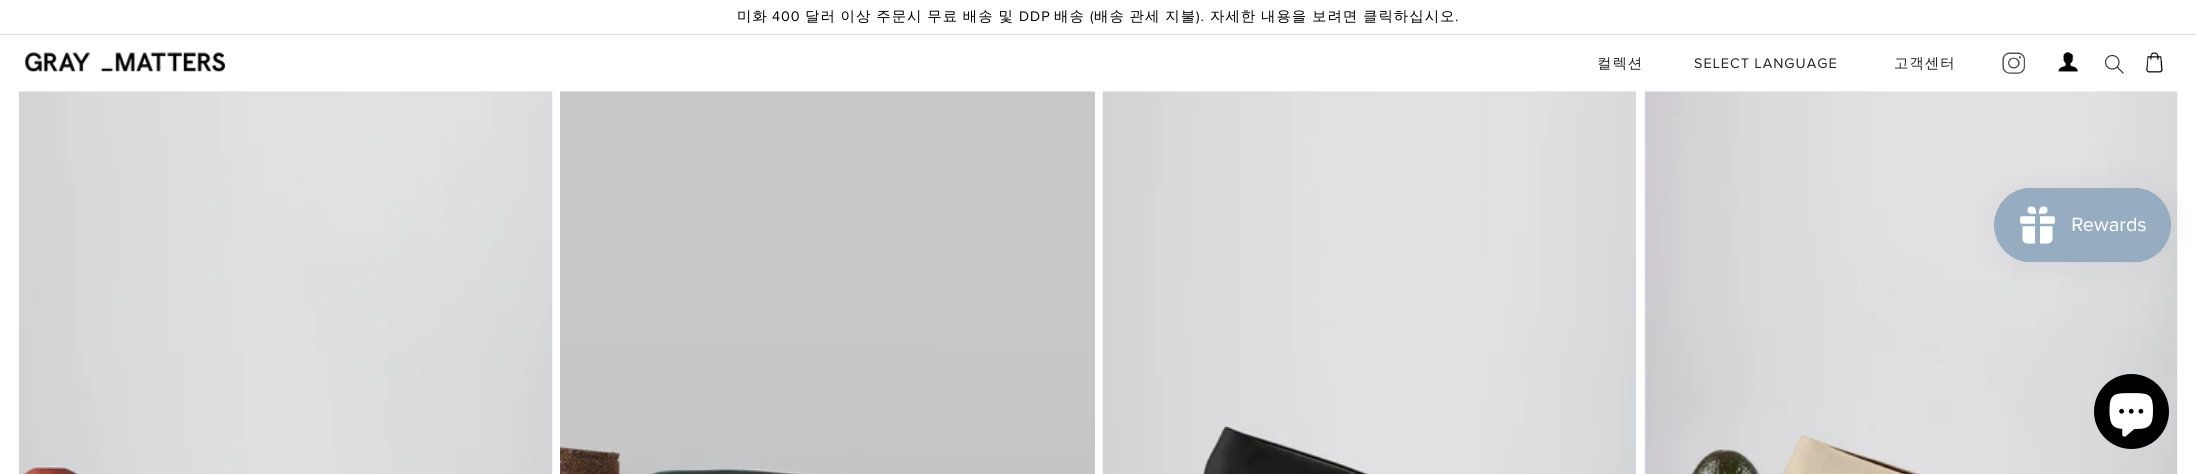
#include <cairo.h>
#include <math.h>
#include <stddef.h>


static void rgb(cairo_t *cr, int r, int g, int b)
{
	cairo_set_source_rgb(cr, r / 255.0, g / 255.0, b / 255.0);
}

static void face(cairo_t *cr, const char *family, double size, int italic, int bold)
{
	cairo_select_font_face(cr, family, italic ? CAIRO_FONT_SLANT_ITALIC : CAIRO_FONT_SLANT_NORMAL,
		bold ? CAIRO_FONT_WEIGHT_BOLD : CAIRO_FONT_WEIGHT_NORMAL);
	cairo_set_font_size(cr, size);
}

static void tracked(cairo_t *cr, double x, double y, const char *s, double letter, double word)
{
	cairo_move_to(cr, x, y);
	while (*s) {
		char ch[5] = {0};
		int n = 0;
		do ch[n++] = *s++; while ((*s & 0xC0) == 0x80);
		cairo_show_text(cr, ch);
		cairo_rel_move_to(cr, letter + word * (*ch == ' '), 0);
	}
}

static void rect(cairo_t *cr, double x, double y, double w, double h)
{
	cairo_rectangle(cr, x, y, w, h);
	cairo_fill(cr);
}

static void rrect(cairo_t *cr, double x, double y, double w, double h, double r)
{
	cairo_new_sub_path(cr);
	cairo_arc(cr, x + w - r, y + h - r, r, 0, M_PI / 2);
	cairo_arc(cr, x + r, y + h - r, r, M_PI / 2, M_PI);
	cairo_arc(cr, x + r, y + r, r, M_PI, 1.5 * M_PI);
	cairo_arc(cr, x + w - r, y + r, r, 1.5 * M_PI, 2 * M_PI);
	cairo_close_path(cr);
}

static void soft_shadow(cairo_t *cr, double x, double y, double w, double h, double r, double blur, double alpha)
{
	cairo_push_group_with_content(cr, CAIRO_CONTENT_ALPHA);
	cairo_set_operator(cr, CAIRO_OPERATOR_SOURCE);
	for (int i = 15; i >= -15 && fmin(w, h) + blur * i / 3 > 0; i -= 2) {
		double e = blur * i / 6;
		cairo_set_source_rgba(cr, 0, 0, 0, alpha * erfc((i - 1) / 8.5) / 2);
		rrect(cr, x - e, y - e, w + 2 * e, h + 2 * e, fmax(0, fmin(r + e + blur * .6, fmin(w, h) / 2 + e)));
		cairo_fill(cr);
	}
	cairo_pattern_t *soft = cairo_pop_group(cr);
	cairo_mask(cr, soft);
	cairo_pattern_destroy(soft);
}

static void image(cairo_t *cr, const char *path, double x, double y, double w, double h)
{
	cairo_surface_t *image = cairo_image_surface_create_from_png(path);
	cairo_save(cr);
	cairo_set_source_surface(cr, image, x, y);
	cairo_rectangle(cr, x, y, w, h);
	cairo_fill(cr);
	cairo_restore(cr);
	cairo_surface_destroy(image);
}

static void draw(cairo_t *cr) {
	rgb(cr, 255, 255, 255);
	cairo_paint(cr);
	rgb(cr, 220, 220, 220);
	rect(cr, 0, 34, 2196, 1);
	face(cr, "WenQuanYi Zen Hei Medium", 14.4, 0, 0);
	rgb(cr, 0, 0, 0);
	tracked(cr, 737, 21, "미화", 1, 0);
	face(cr, "Proxima Nova", 14.4, 0, 0);
	tracked(cr, 772, 21, "400", 1, 0);
	face(cr, "WenQuanYi Zen Hei Medium", 14.4, 0, 0);
	tracked(cr, 805, 21, "달러 이상 주문시 무료 배송 및", 1, -0.5);
	face(cr, "Proxima Nova", 14.4, 0, 0);
	tracked(cr, 1019, 21, "DDP", 1, 0);
	face(cr, "WenQuanYi Zen Hei Medium", 14.4, 0, 0);
	tracked(cr, 1054, 21, "배송", 1, 0);
	face(cr, "Proxima Nova", 14.4, 0, 0);
	tracked(cr, 1090, 21, "(", 1, 0);
	face(cr, "WenQuanYi Zen Hei Medium", 14.4, 0, 0);
	tracked(cr, 1094, 21, "배송 관세 지불", 1, -0.5);
	face(cr, "Proxima Nova", 14.4, 0, 0);
	tracked(cr, 1196, 21, ").", 1, 0);
	face(cr, "WenQuanYi Zen Hei Medium", 14.4, 0, 0);
	tracked(cr, 1210, 21, "자세한 내용을 보려면 클릭하십시오", 1, -0.5);
	face(cr, "Proxima Nova", 14.4, 0, 0);
	tracked(cr, 1455, 21, ".", 1, 0);
	image(cr, "image0.png", 25, 52, 200, 20);
	face(cr, "WenQuanYi Zen Hei Medium", 14.4, 0, 0);
	rgb(cr, 34, 35, 35);
	tracked(cr, 1597, 68, "컬렉션", 1, 0);
	face(cr, "Proxima Nova", 14.4, 0, 0);
	tracked(cr, 1694, 68, "SELECT LANGUAGE", 1, 0);
	face(cr, "WenQuanYi Zen Hei Medium", 14.4, 0, 0);
	tracked(cr, 1894, 68, "고객센터", 1, 0);
	image(cr, "image1.png", 2002, 52, 23, 22);
	image(cr, "image2.png", 2058, 52, 20, 20);
	image(cr, "image3.png", 2105, 54, 19, 20);
	image(cr, "image4.png", 2146, 52, 17, 21);
	image(cr, "image5.png", 19, 91, 534, 383);
	image(cr, "image6.png", 560, 91, 535, 383);
	image(cr, "image7.png", 1102, 91, 534, 383);
	image(cr, "image8.png", 1644, 91, 534, 383);
	rgb(cr, 0, 0, 0);
	soft_shadow(cr, 1994, 188, 177, 75, 37.5, 15.5, 0.05);
	image(cr, "image9.png", 1994, 187, 177, 76);
	rgb(cr, 0, 0, 0);
	cairo_arc(cr, 2131.5, 411.5, 37.5, 0, 2 * M_PI);
	cairo_fill(cr);
	image(cr, "image10.png", 2109, 393, 44, 44);
}

int main(void) {
	cairo_surface_t *surface = cairo_image_surface_create(CAIRO_FORMAT_RGB24, 2196, 474);
	cairo_t *cr = cairo_create(surface);
	cairo_font_options_t *options = cairo_font_options_create();
	cairo_font_options_set_hint_metrics(options, CAIRO_HINT_METRICS_OFF);
	cairo_font_options_set_hint_style(options, CAIRO_HINT_STYLE_NONE);
	cairo_set_font_options(cr, options);
	cairo_set_miter_limit(cr, 4);
	draw(cr);
	cairo_surface_write_to_png(surface, "render.png");
	cairo_font_options_destroy(options);
	cairo_destroy(cr);
	cairo_surface_destroy(surface);
	return 0;
}
